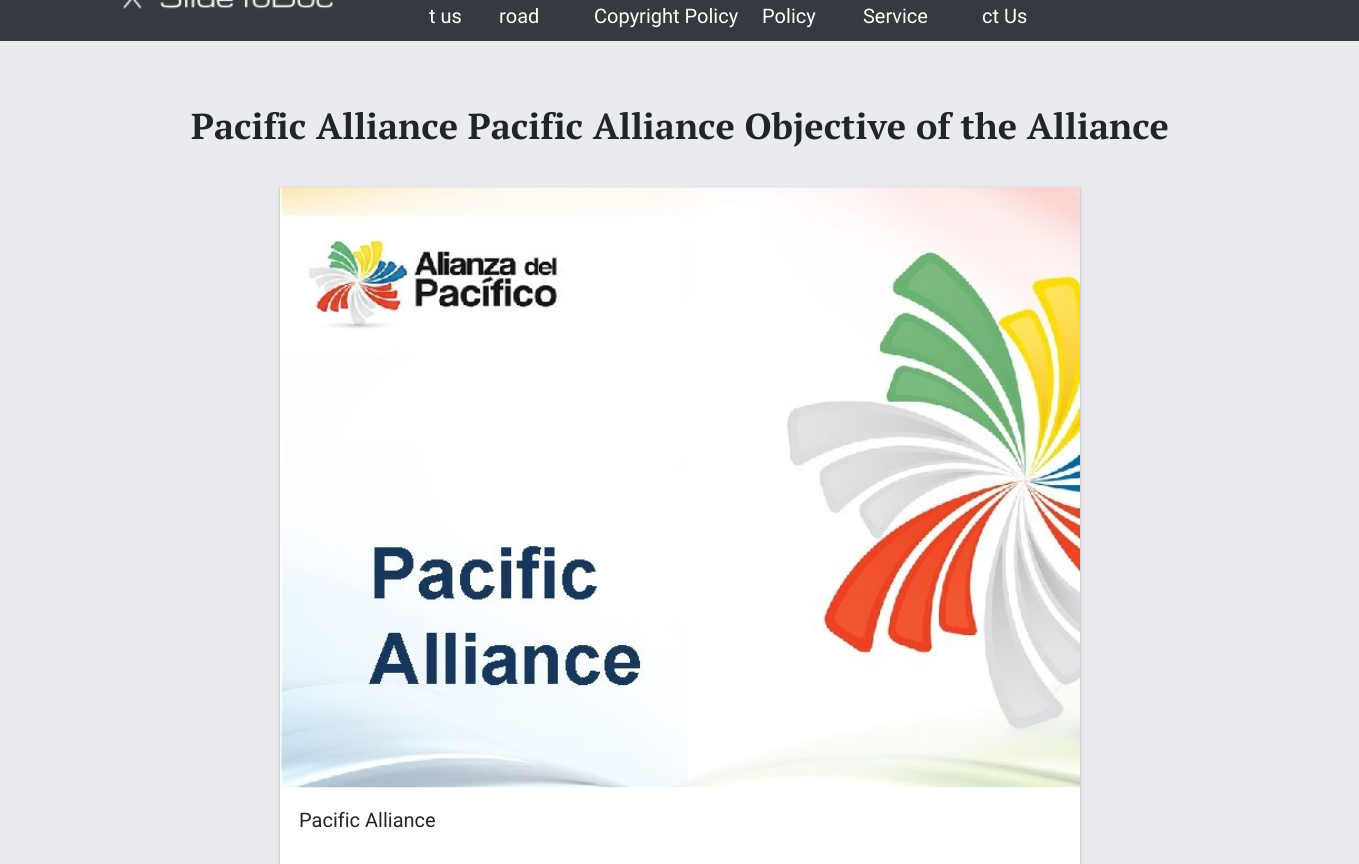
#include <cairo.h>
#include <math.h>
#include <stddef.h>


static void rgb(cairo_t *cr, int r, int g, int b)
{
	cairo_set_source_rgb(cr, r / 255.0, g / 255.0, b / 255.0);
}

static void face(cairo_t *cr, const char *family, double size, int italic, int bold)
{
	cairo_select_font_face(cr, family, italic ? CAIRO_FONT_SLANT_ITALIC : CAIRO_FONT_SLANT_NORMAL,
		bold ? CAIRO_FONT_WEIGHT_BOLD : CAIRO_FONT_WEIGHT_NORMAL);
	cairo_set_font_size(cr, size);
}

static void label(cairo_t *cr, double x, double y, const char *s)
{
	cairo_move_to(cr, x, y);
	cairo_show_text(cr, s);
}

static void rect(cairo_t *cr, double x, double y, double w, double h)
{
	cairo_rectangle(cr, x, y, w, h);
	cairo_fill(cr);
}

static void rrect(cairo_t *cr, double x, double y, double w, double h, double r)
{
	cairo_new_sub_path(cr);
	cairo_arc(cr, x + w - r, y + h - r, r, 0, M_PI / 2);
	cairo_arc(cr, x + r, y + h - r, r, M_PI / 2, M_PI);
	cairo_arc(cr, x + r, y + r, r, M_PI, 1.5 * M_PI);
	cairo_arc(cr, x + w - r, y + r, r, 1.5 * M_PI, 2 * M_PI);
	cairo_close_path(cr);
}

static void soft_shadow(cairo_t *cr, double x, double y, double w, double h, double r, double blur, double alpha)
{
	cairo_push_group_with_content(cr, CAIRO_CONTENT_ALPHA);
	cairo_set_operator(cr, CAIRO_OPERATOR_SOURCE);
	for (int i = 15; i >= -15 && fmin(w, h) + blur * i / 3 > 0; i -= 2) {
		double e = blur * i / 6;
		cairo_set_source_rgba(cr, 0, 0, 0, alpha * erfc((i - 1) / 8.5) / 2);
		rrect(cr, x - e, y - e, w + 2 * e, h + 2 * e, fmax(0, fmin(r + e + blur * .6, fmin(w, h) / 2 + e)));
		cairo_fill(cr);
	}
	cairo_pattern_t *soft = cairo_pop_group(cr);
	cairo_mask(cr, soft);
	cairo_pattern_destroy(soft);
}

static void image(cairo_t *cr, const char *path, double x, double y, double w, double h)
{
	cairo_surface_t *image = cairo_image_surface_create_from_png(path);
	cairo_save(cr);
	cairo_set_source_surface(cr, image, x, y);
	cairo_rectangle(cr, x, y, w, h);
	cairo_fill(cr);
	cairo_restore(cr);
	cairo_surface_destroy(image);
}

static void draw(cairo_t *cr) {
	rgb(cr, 233, 235, 238);
	cairo_paint(cr);
	rgb(cr, 52, 58, 64);
	rect(cr, 0, 0, 1359, 41);
	image(cr, "image0.png", 123, 0, 210, 9);
	face(cr, "Roboto", 20, 0, 0);
	rgb(cr, 255, 255, 255);
	label(cr, 429, 23, "t us");
	label(cr, 499, 23, "road");
	label(cr, 594, 23, "Copyright Policy");
	label(cr, 762, 23, "Policy");
	label(cr, 863, 23, "Service");
	label(cr, 982, 23, "ct Us");
	rgb(cr, 237, 237, 237);
	rect(cr, 0, 160, 1359, 1);
	face(cr, "PT Serif", 36, 0, 1);
	rgb(cr, 33, 37, 41);
	label(cr, 191, 139, "Pacific Alliance Pacific Alliance Objective of the Alliance");
	rgb(cr, 0, 0, 0);
	soft_shadow(cr, 280, 188, 800, 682, 0, 2, 0.1);
	soft_shadow(cr, 280, 189, 800, 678, 0, 1, 0.2);
	rgb(cr, 255, 255, 255);
	rect(cr, 280, 787, 800, 77);
	image(cr, "image1.png", 280, 187, 800, 601);
	face(cr, "Roboto", 20, 0, 0);
	rgb(cr, 33, 37, 41);
	label(cr, 299, 827, "Pacific Alliance");
}

int main(void) {
	cairo_surface_t *surface = cairo_image_surface_create(CAIRO_FORMAT_RGB24, 1359, 864);
	cairo_t *cr = cairo_create(surface);
	cairo_font_options_t *options = cairo_font_options_create();
	cairo_font_options_set_hint_metrics(options, CAIRO_HINT_METRICS_OFF);
	cairo_font_options_set_hint_style(options, CAIRO_HINT_STYLE_NONE);
	cairo_set_font_options(cr, options);
	cairo_set_miter_limit(cr, 4);
	draw(cr);
	cairo_surface_write_to_png(surface, "render.png");
	cairo_font_options_destroy(options);
	cairo_destroy(cr);
	cairo_surface_destroy(surface);
	return 0;
}
